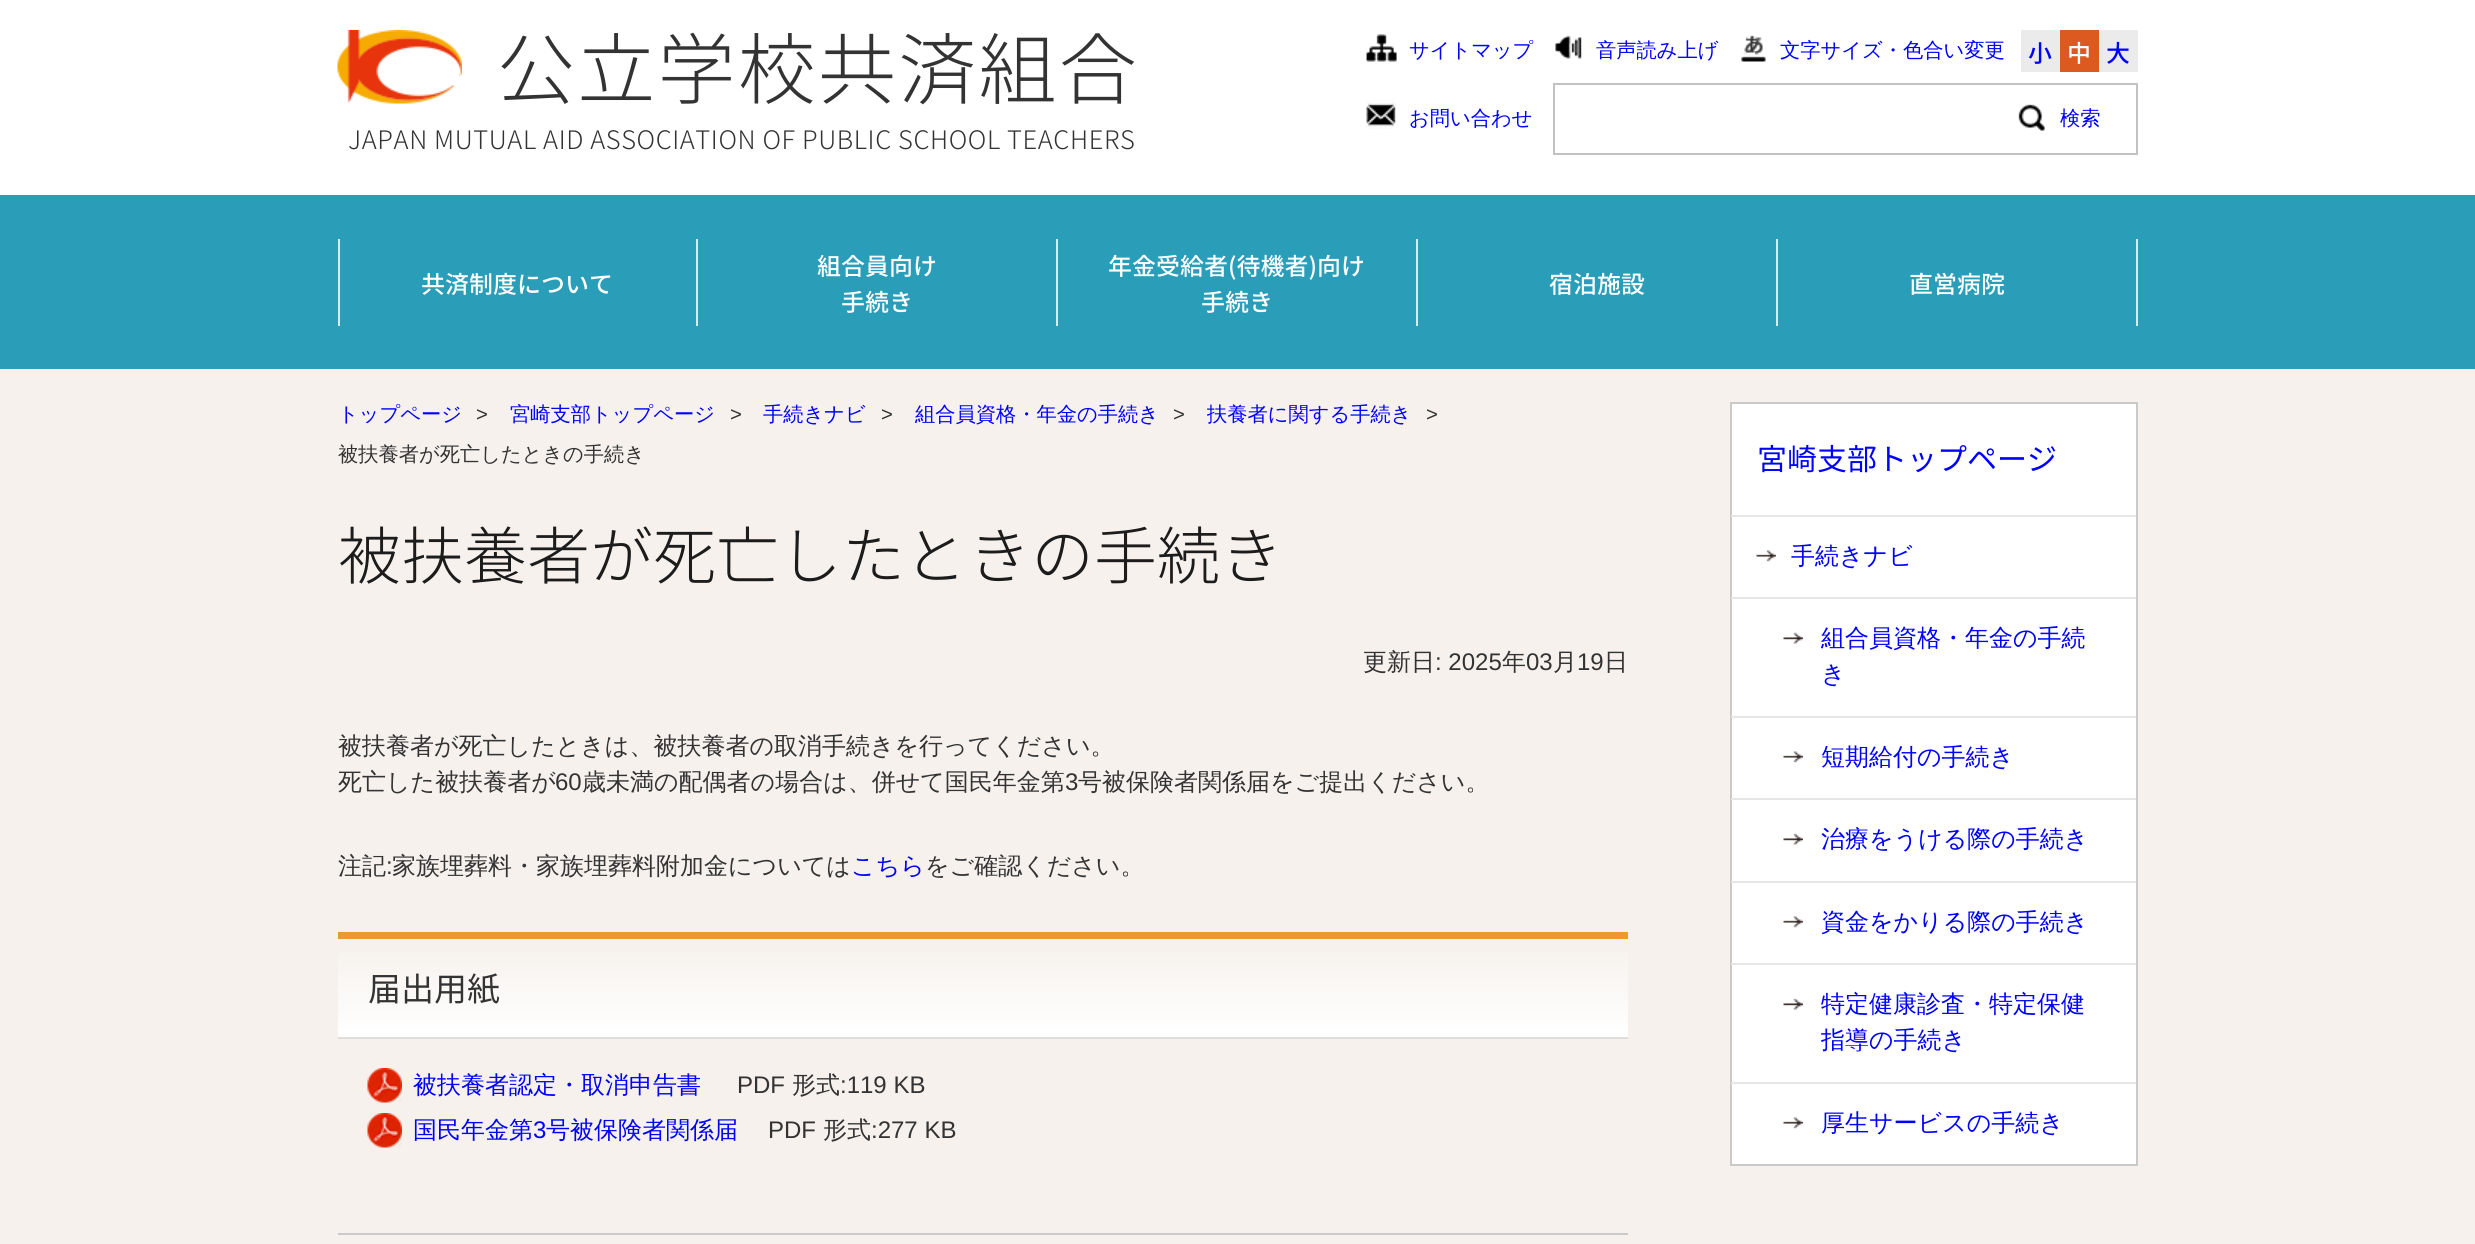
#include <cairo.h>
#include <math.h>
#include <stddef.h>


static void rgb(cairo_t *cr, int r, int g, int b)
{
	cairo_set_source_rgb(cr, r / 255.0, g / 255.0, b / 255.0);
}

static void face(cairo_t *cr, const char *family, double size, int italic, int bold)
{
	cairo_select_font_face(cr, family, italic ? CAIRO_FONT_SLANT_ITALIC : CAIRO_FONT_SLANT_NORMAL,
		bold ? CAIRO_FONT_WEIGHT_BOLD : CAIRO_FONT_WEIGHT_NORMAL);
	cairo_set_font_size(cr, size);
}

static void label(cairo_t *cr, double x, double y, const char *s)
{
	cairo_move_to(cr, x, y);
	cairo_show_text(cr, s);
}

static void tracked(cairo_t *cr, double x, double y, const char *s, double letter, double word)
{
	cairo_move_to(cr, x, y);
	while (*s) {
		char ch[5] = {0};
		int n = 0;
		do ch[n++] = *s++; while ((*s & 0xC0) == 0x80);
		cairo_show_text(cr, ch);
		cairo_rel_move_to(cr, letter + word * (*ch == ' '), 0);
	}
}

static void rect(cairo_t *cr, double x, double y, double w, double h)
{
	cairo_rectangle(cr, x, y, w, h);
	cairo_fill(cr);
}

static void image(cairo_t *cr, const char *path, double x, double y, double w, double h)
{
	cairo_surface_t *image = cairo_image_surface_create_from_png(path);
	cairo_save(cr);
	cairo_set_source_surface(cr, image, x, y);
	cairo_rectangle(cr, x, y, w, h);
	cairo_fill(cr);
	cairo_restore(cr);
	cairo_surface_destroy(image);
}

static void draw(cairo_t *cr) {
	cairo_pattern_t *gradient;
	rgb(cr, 246, 241, 236);
	cairo_paint(cr);
	rgb(cr, 255, 255, 255);
	rect(cr, 0, 0, 2475, 195);
	image(cr, "image0.png", 337, 30, 125, 74);
	face(cr, "Noto Sans JP Light", 78, 0, 0);
	rgb(cr, 51, 51, 51);
	tracked(cr, 497, 98, "公立学校共済組合", 2.25, 0);
	face(cr, "Noto Sans JP Light", 25.5, 0, 0);
	tracked(cr, 348, 149, "JAPAN MUTUAL AID ASSOCIATION OF PUBLIC SCHOOL TEACHERS", 0.6, 0);
	image(cr, "image1.png", 1366, 34, 31, 28);
	face(cr, "WenQuanYi Zen Hei Medium", 20.25, 0, 0);
	rgb(cr, 0, 0, 255);
	label(cr, 1409, 57, "サイトマップ");
	image(cr, "image2.png", 1555, 35, 27, 24);
	label(cr, 1596, 57, "音声読み上げ");
	image(cr, "image3.png", 1741, 35, 25, 27);
	label(cr, 1780, 57, "文字サイズ・色合い変更");
	rgb(cr, 235, 235, 235);
	rect(cr, 2021, 30, 39, 42);
	face(cr, "Noto Sans JP Medium", 24, 0, 0);
	rgb(cr, 0, 0, 255);
	label(cr, 2028, 62, "小");
	rgb(cr, 220, 89, 31);
	rect(cr, 2060, 30, 39, 42);
	rgb(cr, 255, 255, 255);
	label(cr, 2067, 62, "中");
	rgb(cr, 235, 235, 235);
	rect(cr, 2099, 30, 39, 42);
	rgb(cr, 0, 0, 255);
	label(cr, 2106, 62, "大");
	image(cr, "image4.png", 1366, 101, 30, 28);
	face(cr, "WenQuanYi Zen Hei Medium", 20.25, 0, 0);
	label(cr, 1409, 125, "お問い合わせ");
	cairo_rectangle(cr, 1554, 84, 583, 70);
	rgb(cr, 194, 194, 194);
	cairo_stroke(cr);
	image(cr, "image5.png", 2018, 104, 27, 27);
	rgb(cr, 0, 0, 255);
	label(cr, 2060, 125, "検索");
	rgb(cr, 42, 158, 184);
	rect(cr, 0, 195, 2475, 174);
	rgb(cr, 212, 236, 241);
	rect(cr, 696, 239, 2, 87);
	rect(cr, 338, 239, 2, 87);
	face(cr, "Noto Sans JP Medium", 24, 0, 0);
	rgb(cr, 255, 255, 255);
	label(cr, 421, 293, "共済制度について");
	rgb(cr, 212, 236, 241);
	rect(cr, 1056, 239, 2, 87);
	rgb(cr, 255, 255, 255);
	label(cr, 817, 275, "組合員向け");
	label(cr, 841, 311, "手続き");
	rgb(cr, 212, 236, 241);
	rect(cr, 1416, 239, 2, 87);
	rgb(cr, 255, 255, 255);
	label(cr, 1108, 275, "年金受給者(待機者)向け");
	label(cr, 1201, 311, "手続き");
	rgb(cr, 212, 236, 241);
	rect(cr, 1776, 239, 2, 87);
	rgb(cr, 255, 255, 255);
	label(cr, 1549, 293, "宿泊施設");
	rgb(cr, 212, 236, 241);
	rect(cr, 2136, 239, 2, 87);
	rgb(cr, 255, 255, 255);
	label(cr, 1909, 293, "直営病院");
	face(cr, "WenQuanYi Zen Hei Medium", 20.25, 0, 0);
	rgb(cr, 0, 0, 255);
	label(cr, 338, 421, "トップページ");
	face(cr, "Liberation Sans", 20.25, 0, 0);
	rgb(cr, 51, 51, 51);
	label(cr, 476, 421, ">");
	face(cr, "WenQuanYi Zen Hei Medium", 20.25, 0, 0);
	rgb(cr, 0, 0, 255);
	label(cr, 510, 421, "宮崎支部トップページ");
	face(cr, "Liberation Sans", 20.25, 0, 0);
	rgb(cr, 51, 51, 51);
	label(cr, 730, 421, ">");
	face(cr, "WenQuanYi Zen Hei Medium", 20.25, 0, 0);
	rgb(cr, 0, 0, 255);
	label(cr, 763, 421, "手続きナビ");
	face(cr, "Liberation Sans", 20.25, 0, 0);
	rgb(cr, 51, 51, 51);
	label(cr, 881, 421, ">");
	face(cr, "WenQuanYi Zen Hei Medium", 20.25, 0, 0);
	rgb(cr, 0, 0, 255);
	label(cr, 915, 421, "組合員資格・年金の手続き");
	face(cr, "Liberation Sans", 20.25, 0, 0);
	rgb(cr, 51, 51, 51);
	label(cr, 1173, 421, ">");
	face(cr, "WenQuanYi Zen Hei Medium", 20.25, 0, 0);
	rgb(cr, 0, 0, 255);
	label(cr, 1207, 421, "扶養者に関する手続き");
	face(cr, "Liberation Sans", 20.25, 0, 0);
	rgb(cr, 51, 51, 51);
	label(cr, 1426, 421, ">");
	face(cr, "WenQuanYi Zen Hei Medium", 20.25, 0, 0);
	label(cr, 338, 461, "被扶養者が死亡したときの手続き");
	face(cr, "Noto Sans JP Light", 63, 0, 0);
	rgb(cr, 28, 28, 28);
	label(cr, 338, 579, "被扶養者が死亡したときの手続き");
	face(cr, "WenQuanYi Zen Hei Medium", 24, 0, 0);
	rgb(cr, 51, 51, 51);
	label(cr, 1363, 670, "更新日");
	face(cr, "Liberation Sans", 24, 0, 0);
	label(cr, 1435, 670, ": 2025");
	face(cr, "WenQuanYi Zen Hei Medium", 24, 0, 0);
	label(cr, 1502, 670, "年");
	face(cr, "Liberation Sans", 24, 0, 0);
	label(cr, 1526, 670, "03");
	face(cr, "WenQuanYi Zen Hei Medium", 24, 0, 0);
	label(cr, 1553, 670, "月");
	face(cr, "Liberation Sans", 24, 0, 0);
	label(cr, 1577, 670, "19");
	face(cr, "WenQuanYi Zen Hei Medium", 24, 0, 0);
	label(cr, 1604, 670, "日");
	label(cr, 338, 754, "被扶養者が死亡したときは、被扶養者の取消手続きを行ってください。");
	label(cr, 338, 790, "死亡した被扶養者が");
	face(cr, "Liberation Sans", 24, 0, 0);
	label(cr, 555, 790, "60");
	face(cr, "WenQuanYi Zen Hei Medium", 24, 0, 0);
	label(cr, 582, 790, "歳未満の配偶者の場合は、併せて国民年金第");
	face(cr, "Liberation Sans", 24, 0, 0);
	label(cr, 1065, 790, "3");
	face(cr, "WenQuanYi Zen Hei Medium", 24, 0, 0);
	label(cr, 1078, 790, "号被保険者関係届をご提出ください。");
	label(cr, 338, 874, "注記");
	face(cr, "Liberation Sans", 24, 0, 0);
	label(cr, 386, 874, ":");
	face(cr, "WenQuanYi Zen Hei Medium", 24, 0, 0);
	label(cr, 392, 874, "家族埋葬料・家族埋葬料附加金については");
	rgb(cr, 0, 0, 255);
	label(cr, 851, 874, "こちら");
	rgb(cr, 51, 51, 51);
	label(cr, 925, 874, "をご確認ください。");
	gradient = cairo_pattern_create_linear(983, 939, 983, 1037);
	cairo_pattern_add_color_stop_rgba(gradient, 0, 0.965, 0.945, 0.925, 1);
	cairo_pattern_add_color_stop_rgba(gradient, 1, 1, 1, 1, 1);
	cairo_set_source(cr, gradient);
	cairo_pattern_destroy(gradient);
	rect(cr, 338, 952, 1290, 85);
	rgb(cr, 234, 156, 42);
	rect(cr, 338, 932, 1290, 7);
	rgb(cr, 224, 220, 217);
	rect(cr, 338, 1037, 1290, 2);
	face(cr, "Noto Sans JP", 33, 0, 0);
	rgb(cr, 51, 51, 51);
	label(cr, 368, 1001, "届出用紙");
	image(cr, "image6.png", 367, 1068, 35, 35);
	face(cr, "WenQuanYi Zen Hei Medium", 24, 0, 0);
	rgb(cr, 0, 0, 255);
	label(cr, 413, 1093, "被扶養者認定・取消申告書");
	face(cr, "Liberation Sans", 24, 0, 0);
	rgb(cr, 51, 51, 51);
	label(cr, 737, 1093, "PDF");
	face(cr, "WenQuanYi Zen Hei Medium", 24, 0, 0);
	label(cr, 792, 1093, "形式");
	face(cr, "Liberation Sans", 24, 0, 0);
	label(cr, 840, 1093, ":119 KB");
	image(cr, "image6.png", 367, 1113, 35, 35);
	face(cr, "WenQuanYi Zen Hei Medium", 24, 0, 0);
	rgb(cr, 0, 0, 255);
	label(cr, 413, 1138, "国民年金第");
	face(cr, "Liberation Sans", 24, 0, 0);
	label(cr, 533, 1138, "3");
	face(cr, "WenQuanYi Zen Hei Medium", 24, 0, 0);
	label(cr, 546, 1138, "号被保険者関係届");
	face(cr, "Liberation Sans", 24, 0, 0);
	rgb(cr, 51, 51, 51);
	label(cr, 768, 1138, "PDF");
	face(cr, "WenQuanYi Zen Hei Medium", 24, 0, 0);
	label(cr, 823, 1138, "形式");
	face(cr, "Liberation Sans", 24, 0, 0);
	label(cr, 871, 1138, ":277 KB");
	rgb(cr, 202, 202, 202);
	rect(cr, 338, 1233, 1290, 2);
	rgb(cr, 255, 255, 255);
	cairo_rectangle(cr, 1731, 403, 406, 762);
	cairo_fill_preserve(cr);
	rgb(cr, 202, 202, 202);
	cairo_stroke(cr);
	face(cr, "Noto Sans JP", 30, 0, 0);
	rgb(cr, 0, 0, 255);
	label(cr, 1757, 470, "宮崎支部トップページ");
	rgb(cr, 230, 230, 230);
	rect(cr, 1731, 515, 405, 2);
	image(cr, "image7.png", 1756, 550, 20, 12);
	face(cr, "WenQuanYi Zen Hei Medium", 24, 0, 0);
	rgb(cr, 0, 0, 255);
	label(cr, 1791, 564, "手続きナビ");
	rgb(cr, 230, 230, 230);
	rect(cr, 1731, 597, 405, 2);
	image(cr, "image8.png", 1783, 632, 20, 12);
	rgb(cr, 0, 0, 255);
	label(cr, 1821, 646, "組合員資格・年金の手続");
	label(cr, 1821, 682, "き");
	rgb(cr, 230, 230, 230);
	rect(cr, 1731, 716, 405, 2);
	image(cr, "image7.png", 1783, 751, 20, 12);
	rgb(cr, 0, 0, 255);
	label(cr, 1821, 765, "短期給付の手続き");
	rgb(cr, 230, 230, 230);
	rect(cr, 1731, 798, 405, 2);
	image(cr, "image8.png", 1783, 833, 20, 12);
	rgb(cr, 0, 0, 255);
	label(cr, 1821, 847, "治療をうける際の手続き");
	rgb(cr, 230, 230, 230);
	rect(cr, 1731, 881, 405, 2);
	image(cr, "image7.png", 1783, 916, 20, 12);
	rgb(cr, 0, 0, 255);
	label(cr, 1821, 930, "資金をかりる際の手続き");
	rgb(cr, 230, 230, 230);
	rect(cr, 1731, 963, 405, 2);
	image(cr, "image8.png", 1783, 998, 20, 12);
	rgb(cr, 0, 0, 255);
	label(cr, 1821, 1012, "特定健康診査・特定保健");
	label(cr, 1821, 1048, "指導の手続き");
	rgb(cr, 230, 230, 230);
	rect(cr, 1731, 1082, 405, 2);
	image(cr, "image7.png", 1783, 1117, 20, 12);
	rgb(cr, 0, 0, 255);
	label(cr, 1821, 1131, "厚生サービスの手続き");
}

int main(void) {
	cairo_surface_t *surface = cairo_image_surface_create(CAIRO_FORMAT_RGB24, 2475, 1244);
	cairo_t *cr = cairo_create(surface);
	cairo_font_options_t *options = cairo_font_options_create();
	cairo_font_options_set_hint_metrics(options, CAIRO_HINT_METRICS_OFF);
	cairo_font_options_set_hint_style(options, CAIRO_HINT_STYLE_NONE);
	cairo_set_font_options(cr, options);
	cairo_set_miter_limit(cr, 4);
	draw(cr);
	cairo_surface_write_to_png(surface, "render.png");
	cairo_font_options_destroy(options);
	cairo_destroy(cr);
	cairo_surface_destroy(surface);
	return 0;
}
